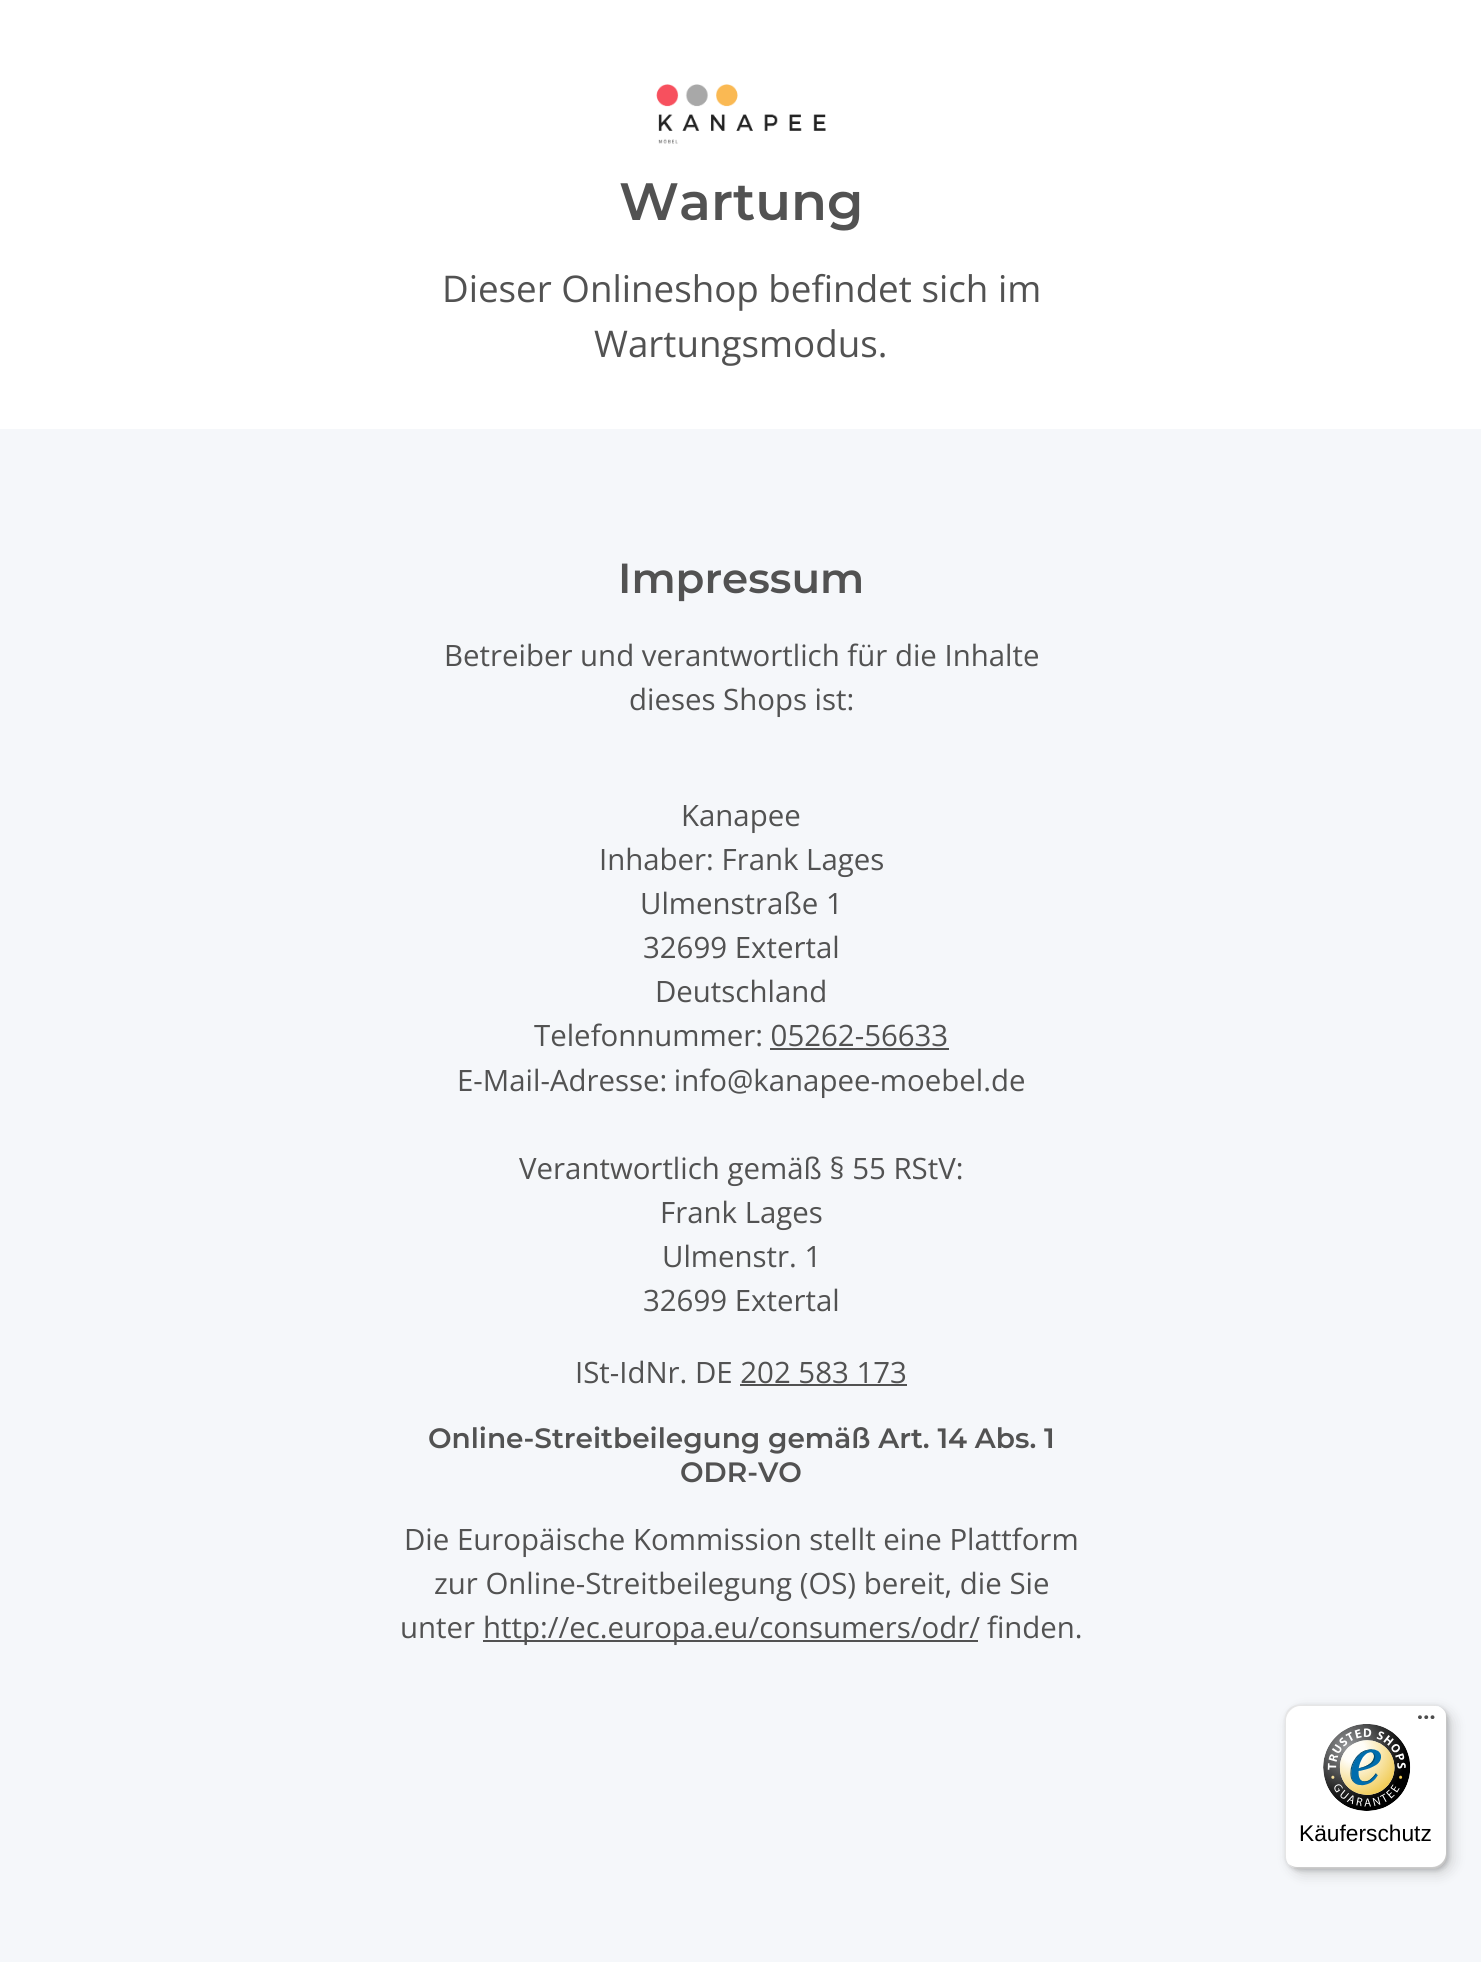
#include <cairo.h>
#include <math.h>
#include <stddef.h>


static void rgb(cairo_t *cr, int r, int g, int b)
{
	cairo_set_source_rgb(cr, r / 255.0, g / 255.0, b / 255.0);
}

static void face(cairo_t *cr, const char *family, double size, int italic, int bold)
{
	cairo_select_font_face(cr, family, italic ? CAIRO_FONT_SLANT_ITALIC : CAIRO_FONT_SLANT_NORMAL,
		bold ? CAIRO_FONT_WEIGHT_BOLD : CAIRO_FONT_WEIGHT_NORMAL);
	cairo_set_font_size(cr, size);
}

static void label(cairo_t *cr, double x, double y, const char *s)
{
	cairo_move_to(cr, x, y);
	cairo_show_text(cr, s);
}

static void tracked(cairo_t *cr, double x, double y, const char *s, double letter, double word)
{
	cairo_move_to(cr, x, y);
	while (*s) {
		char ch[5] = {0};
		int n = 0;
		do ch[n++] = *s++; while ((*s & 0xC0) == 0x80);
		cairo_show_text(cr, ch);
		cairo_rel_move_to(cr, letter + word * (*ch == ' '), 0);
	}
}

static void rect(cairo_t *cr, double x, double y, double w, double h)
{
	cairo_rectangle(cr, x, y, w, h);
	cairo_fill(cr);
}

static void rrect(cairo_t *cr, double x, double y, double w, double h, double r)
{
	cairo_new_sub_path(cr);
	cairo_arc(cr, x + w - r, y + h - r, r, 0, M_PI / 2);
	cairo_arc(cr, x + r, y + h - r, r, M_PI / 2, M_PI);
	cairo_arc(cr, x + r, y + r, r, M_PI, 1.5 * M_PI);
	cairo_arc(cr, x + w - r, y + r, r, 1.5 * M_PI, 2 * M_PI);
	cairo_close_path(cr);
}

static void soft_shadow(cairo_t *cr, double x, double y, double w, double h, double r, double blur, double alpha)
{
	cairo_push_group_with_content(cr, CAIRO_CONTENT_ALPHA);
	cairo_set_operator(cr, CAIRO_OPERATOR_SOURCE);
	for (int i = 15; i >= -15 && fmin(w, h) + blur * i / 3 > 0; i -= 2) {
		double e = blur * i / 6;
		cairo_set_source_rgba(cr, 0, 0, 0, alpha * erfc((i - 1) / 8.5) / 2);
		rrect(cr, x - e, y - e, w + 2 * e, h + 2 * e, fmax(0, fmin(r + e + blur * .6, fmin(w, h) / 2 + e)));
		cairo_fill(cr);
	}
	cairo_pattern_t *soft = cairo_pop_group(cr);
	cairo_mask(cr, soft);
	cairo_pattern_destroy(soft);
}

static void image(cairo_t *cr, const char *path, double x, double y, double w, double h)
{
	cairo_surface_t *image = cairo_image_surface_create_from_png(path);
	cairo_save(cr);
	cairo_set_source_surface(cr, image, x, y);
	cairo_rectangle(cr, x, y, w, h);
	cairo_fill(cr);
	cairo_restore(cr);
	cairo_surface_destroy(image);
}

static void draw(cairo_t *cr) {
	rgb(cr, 255, 255, 255);
	cairo_paint(cr);
	image(cr, "image0.png", 656, 84, 170, 60);
	face(cr, "Montserrat SemiBold", 52.5, 0, 0);
	rgb(cr, 82, 82, 82);
	label(cr, 619, 220, "Wartung");
	face(cr, "Open Sans", 36.75, 0, 0);
	label(cr, 442, 302, "Dieser Onlineshop befindet sich im");
	label(cr, 594, 357, "Wartungsmodus.");
	rgb(cr, 245, 247, 250);
	rect(cr, 0, 429, 1481, 1533);
	face(cr, "Montserrat SemiBold", 42, 0, 0);
	rgb(cr, 82, 82, 82);
	label(cr, 618, 593, "Impressum");
	face(cr, "Open Sans", 29.4, 0, 0);
	label(cr, 444, 666, "Betreiber und verantwortlich für die Inhalte");
	label(cr, 629, 710, "dieses Shops ist:");
	label(cr, 681, 826, "Kanapee");
	label(cr, 599, 870, "Inhaber: Frank Lages");
	label(cr, 640, 914, "Ulmenstraße 1");
	label(cr, 643, 958, "32699 Extertal");
	label(cr, 655, 1002, "Deutschland");
	label(cr, 534, 1046, "Telefonnummer: 05262-56633");
	rect(cr, 770, 1048, 179, 2);
	tracked(cr, 457, 1091, "E-Mail-Adresse: info@kanapee-moebel.de", 0, -1);
	label(cr, 519, 1179, "Verantwortlich gemäß § 55 RStV:");
	label(cr, 660, 1223, "Frank Lages");
	label(cr, 662, 1267, "Ulmenstr. 1");
	label(cr, 643, 1311, "32699 Extertal");
	label(cr, 575, 1383, "ISt-IdNr. DE 202 583 173");
	rect(cr, 740, 1384, 167, 2);
	face(cr, "Montserrat SemiBold", 28, 0, 0);
	label(cr, 428, 1448, "Online-Streitbeilegung gemäß Art. 14 Abs. 1");
	label(cr, 680, 1482, "ODR-VO");
	face(cr, "Open Sans", 29.4, 0, 0);
	label(cr, 404, 1550, "Die Europäische Kommission stellt eine Plattform");
	label(cr, 434, 1594, "zur Online-Streitbeilegung (OS) bereit, die Sie");
	label(cr, 400, 1638, "unter");
	rect(cr, 483, 1640, 495, 2);
	label(cr, 483, 1638, "http://ec.europa.eu/consumers/odr/");
	label(cr, 987, 1638, "finden.");
	rgb(cr, 0, 0, 0);
	soft_shadow(cr, 1290, 1710, 163, 164, 14, 7, 0.15);
	soft_shadow(cr, 1286, 1706, 163, 165, 14, 2, 0.15);
	rgb(cr, 255, 255, 255);
	rrect(cr, 1285, 1705, 162, 164, 14);
	cairo_fill(cr);
	cairo_set_source_rgba(cr, 0, 0, 0, 0.1);
	cairo_new_path(cr);
	cairo_move_to(cr, 1300, 1706);
	cairo_line_to(cr, 1435, 1706);
	cairo_curve_to(cr, 1437, 1706, 1439, 1706, 1440, 1707);
	cairo_curve_to(cr, 1438, 1706, 1436, 1705, 1433, 1705);
	cairo_line_to(cr, 1299, 1705);
	cairo_curve_to(cr, 1291, 1705, 1285, 1711, 1285, 1719);
	cairo_line_to(cr, 1285, 1855);
	cairo_curve_to(cr, 1285, 1858, 1286, 1861, 1288, 1864);
	cairo_curve_to(cr, 1287, 1862, 1286, 1859, 1286, 1857);
	cairo_line_to(cr, 1286, 1720);
	cairo_curve_to(cr, 1286, 1713, 1293, 1706, 1300, 1706);
	cairo_close_path(cr);
	cairo_fill(cr);
	cairo_set_source_rgba(cr, 0, 0, 0, 0.2);
	cairo_new_path(cr);
	cairo_move_to(cr, 1289, 1864);
	cairo_curve_to(cr, 1291, 1867, 1295, 1869, 1299, 1869);
	cairo_line_to(cr, 1433, 1869);
	cairo_curve_to(cr, 1441, 1869, 1447, 1863, 1447, 1855);
	cairo_line_to(cr, 1447, 1719);
	cairo_curve_to(cr, 1447, 1716, 1446, 1714, 1445, 1712);
	cairo_curve_to(cr, 1446, 1713, 1446, 1715, 1446, 1717);
	cairo_line_to(cr, 1446, 1853);
	cairo_curve_to(cr, 1446, 1861, 1439, 1867, 1432, 1867);
	cairo_line_to(cr, 1297, 1867);
	cairo_curve_to(cr, 1294, 1867, 1291, 1866, 1289, 1864);
	cairo_close_path(cr);
	cairo_fill(cr);
	cairo_set_source_rgba(cr, 0.196, 0.196, 0.196, 0.2);
	cairo_new_path(cr);
	cairo_move_to(cr, 1291, 1867);
	cairo_curve_to(cr, 1293, 1868, 1296, 1869, 1299, 1869);
	cairo_line_to(cr, 1433, 1869);
	cairo_curve_to(cr, 1441, 1869, 1447, 1863, 1447, 1855);
	cairo_line_to(cr, 1447, 1719);
	cairo_curve_to(cr, 1447, 1716, 1446, 1713, 1445, 1711);
	cairo_curve_to(cr, 1446, 1713, 1446, 1715, 1446, 1717);
	cairo_line_to(cr, 1446, 1854);
	cairo_curve_to(cr, 1446, 1862, 1440, 1868, 1432, 1868);
	cairo_line_to(cr, 1297, 1868);
	cairo_curve_to(cr, 1295, 1868, 1293, 1868, 1291, 1867);
	cairo_close_path(cr);
	cairo_fill(cr);
	cairo_set_source_rgba(cr, 1, 1, 1, 0.3);
	cairo_new_path(cr);
	cairo_move_to(cr, 1290, 1865);
	cairo_curve_to(cr, 1292, 1868, 1295, 1869, 1299, 1869);
	cairo_line_to(cr, 1433, 1869);
	cairo_curve_to(cr, 1441, 1869, 1447, 1863, 1447, 1855);
	cairo_line_to(cr, 1447, 1719);
	cairo_curve_to(cr, 1447, 1715, 1446, 1712, 1443, 1710);
	cairo_curve_to(cr, 1445, 1712, 1446, 1715, 1446, 1718);
	cairo_line_to(cr, 1446, 1854);
	cairo_curve_to(cr, 1446, 1862, 1440, 1868, 1432, 1868);
	cairo_line_to(cr, 1298, 1868);
	cairo_curve_to(cr, 1295, 1868, 1292, 1867, 1290, 1865);
	cairo_close_path(cr);
	cairo_fill(cr);
	image(cr, "image1.png", 1418, 1715, 17, 4);
	image(cr, "image2.png", 1323, 1724, 88, 87);
	face(cr, "Liberation Sans", 22.75, 0, 0);
	rgb(cr, 0, 0, 0);
	label(cr, 1299, 1841, "Käuferschutz");
}

int main(void) {
	cairo_surface_t *surface = cairo_image_surface_create(CAIRO_FORMAT_RGB24, 1481, 1962);
	cairo_t *cr = cairo_create(surface);
	cairo_font_options_t *options = cairo_font_options_create();
	cairo_font_options_set_hint_metrics(options, CAIRO_HINT_METRICS_OFF);
	cairo_font_options_set_hint_style(options, CAIRO_HINT_STYLE_NONE);
	cairo_set_font_options(cr, options);
	cairo_set_miter_limit(cr, 4);
	draw(cr);
	cairo_surface_write_to_png(surface, "render.png");
	cairo_font_options_destroy(options);
	cairo_destroy(cr);
	cairo_surface_destroy(surface);
	return 0;
}
